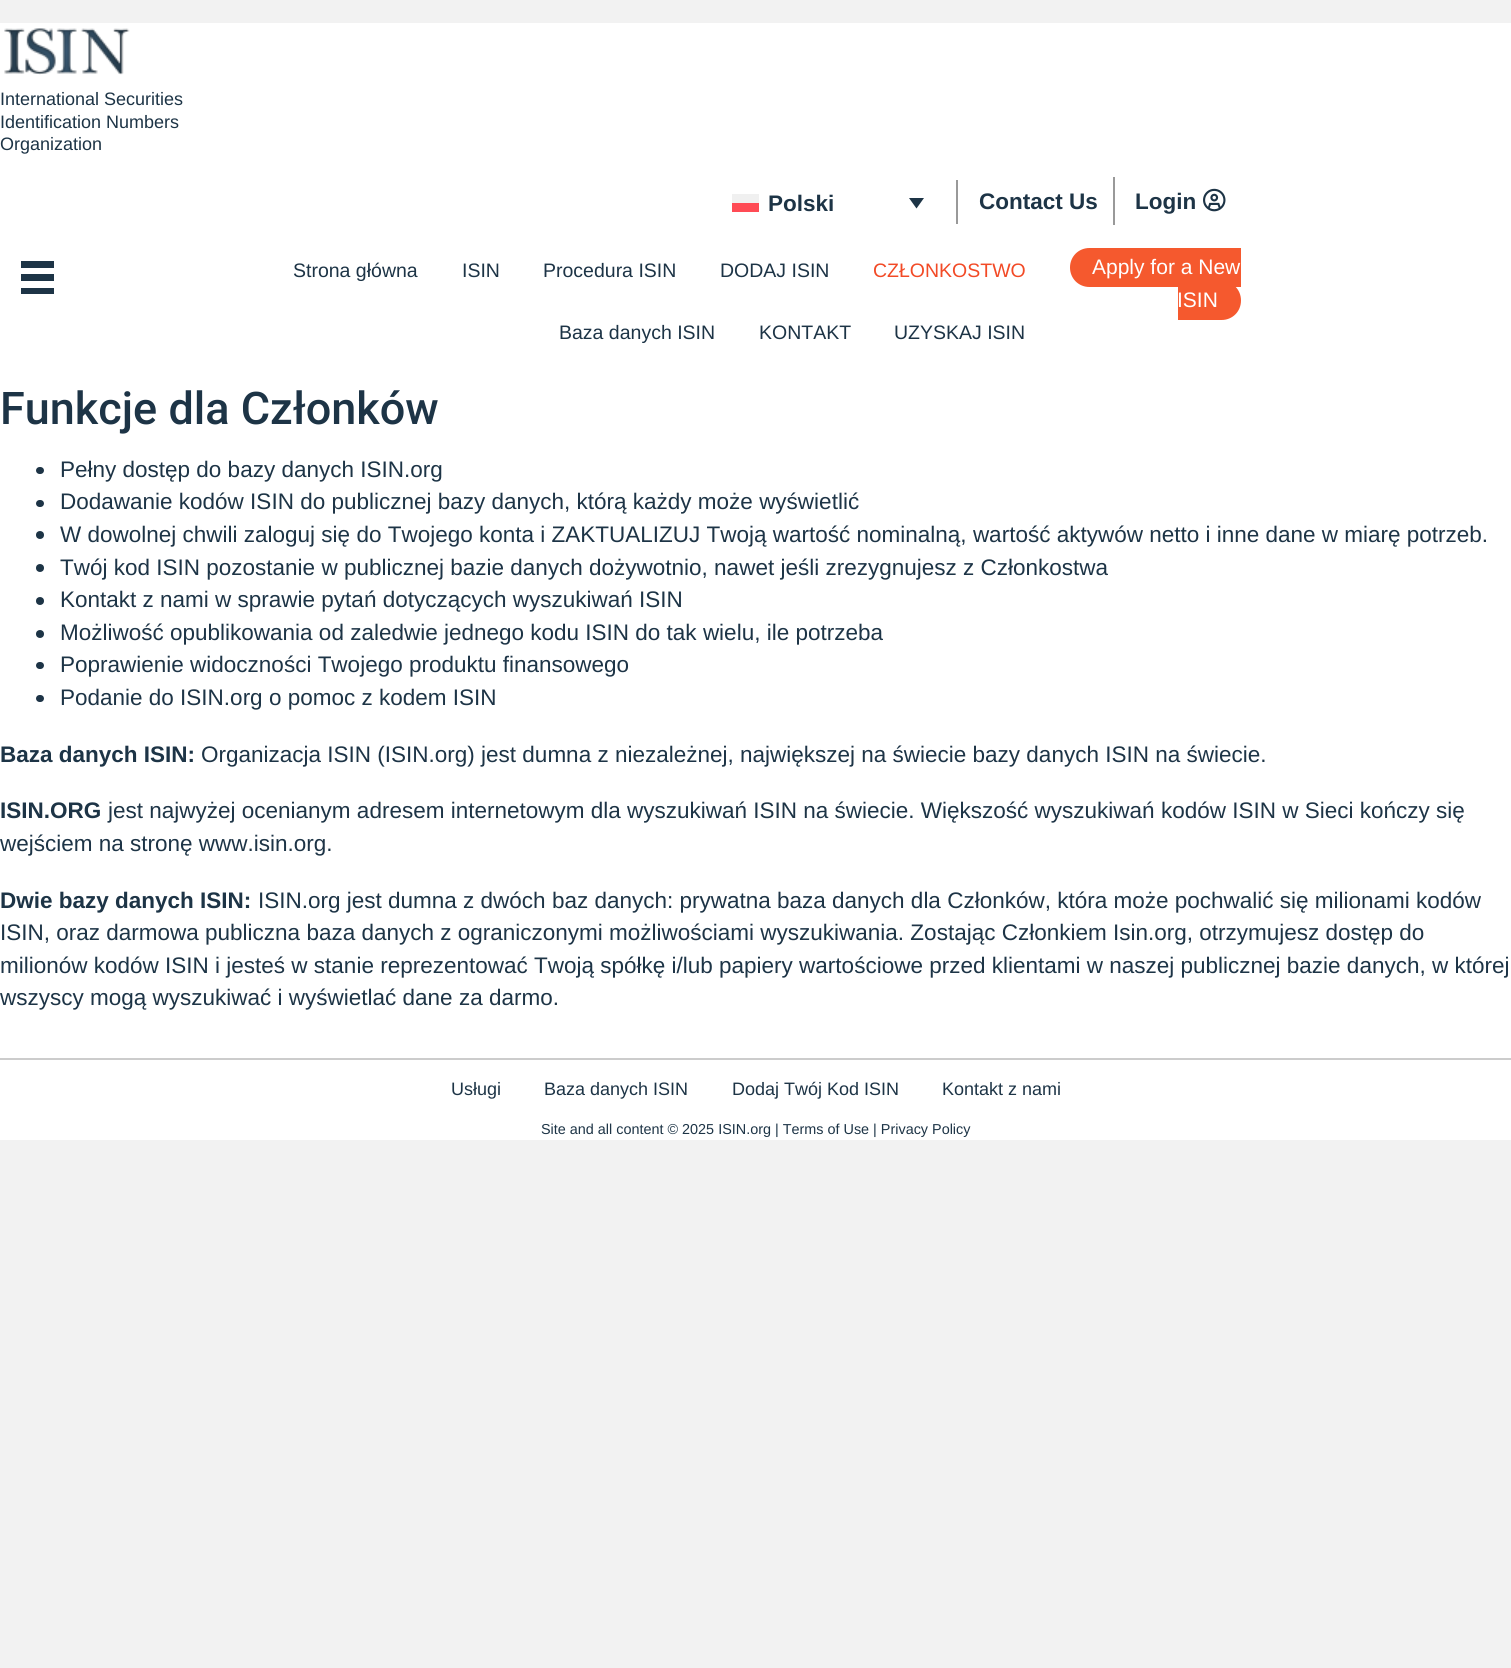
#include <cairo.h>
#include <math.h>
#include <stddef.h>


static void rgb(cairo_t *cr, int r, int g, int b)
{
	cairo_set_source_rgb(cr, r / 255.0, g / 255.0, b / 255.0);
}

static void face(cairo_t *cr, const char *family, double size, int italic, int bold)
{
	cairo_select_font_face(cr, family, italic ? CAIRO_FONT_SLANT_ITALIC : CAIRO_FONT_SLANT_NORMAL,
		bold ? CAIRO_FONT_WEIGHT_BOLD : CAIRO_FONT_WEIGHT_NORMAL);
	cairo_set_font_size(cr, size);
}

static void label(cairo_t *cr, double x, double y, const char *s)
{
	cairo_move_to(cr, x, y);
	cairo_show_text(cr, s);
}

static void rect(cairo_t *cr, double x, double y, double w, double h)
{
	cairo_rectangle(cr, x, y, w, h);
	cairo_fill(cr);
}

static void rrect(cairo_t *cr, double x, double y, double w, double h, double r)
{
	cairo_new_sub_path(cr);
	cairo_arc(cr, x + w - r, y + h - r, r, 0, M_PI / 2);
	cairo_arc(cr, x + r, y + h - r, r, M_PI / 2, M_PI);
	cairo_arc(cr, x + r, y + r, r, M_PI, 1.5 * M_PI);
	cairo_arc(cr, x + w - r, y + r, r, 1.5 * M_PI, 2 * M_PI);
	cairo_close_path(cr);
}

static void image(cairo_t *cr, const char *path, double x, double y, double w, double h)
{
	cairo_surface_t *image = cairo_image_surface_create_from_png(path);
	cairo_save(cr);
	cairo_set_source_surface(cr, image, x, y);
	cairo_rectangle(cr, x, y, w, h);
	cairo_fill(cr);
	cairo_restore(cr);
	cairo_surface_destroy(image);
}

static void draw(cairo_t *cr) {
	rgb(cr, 242, 242, 242);
	cairo_paint(cr);
	rgb(cr, 255, 255, 255);
	rect(cr, 0, 23, 1511, 1117);
	image(cr, "image0.png", 4, 28, 126, 47);
	face(cr, "Liberation Sans", 18, 0, 0);
	rgb(cr, 29, 52, 70);
	label(cr, 0, 105, "International Securities");
	label(cr, 0, 128, "Identification Numbers");
	label(cr, 0, 150, "Organization");
	rgb(cr, 153, 153, 153);
	rect(cr, 956, 180, 2, 44);
	rgb(cr, 240, 240, 240);
	rect(cr, 732, 194, 27, 9);
	face(cr, "Liberation Sans", 22.5, 0, 1);
	rgb(cr, 29, 52, 70);
	label(cr, 768, 211, "Polski");
	cairo_new_path(cr);
	cairo_move_to(cr, 909, 198);
	cairo_line_to(cr, 924, 198);
	cairo_line_to(cr, 916.5, 208.5);
	cairo_close_path(cr);
	cairo_fill(cr);
	rgb(cr, 255, 75, 85);
	rect(cr, 732, 203, 27, 9);
	rgb(cr, 153, 153, 153);
	rect(cr, 1113, 177, 2, 48);
	rgb(cr, 29, 52, 70);
	label(cr, 979, 209, "Contact Us");
	label(cr, 1135, 209, "Login");
	image(cr, "image1.png", 1203, 188, 23, 24);
	rect(cr, 21, 261, 33, 7);
	rect(cr, 21, 274, 33, 7);
	rect(cr, 21, 288, 33, 6);
	face(cr, "Liberation Sans", 19.5, 0, 0);
	label(cr, 293, 277, "Strona główna");
	label(cr, 462, 277, "ISIN");
	label(cr, 543, 277, "Procedura ISIN");
	label(cr, 720, 277, "DODAJ ISIN");
	rgb(cr, 242, 74, 38);
	label(cr, 873, 277, "CZŁONKOSTWO");
	rgb(cr, 29, 52, 70);
	label(cr, 559, 339, "Baza danych ISIN");
	label(cr, 759, 339, "KONTAKT");
	label(cr, 894, 339, "UZYSKAJ ISIN");
	rgb(cr, 245, 89, 46);
	cairo_new_path(cr);
	cairo_move_to(cr, 1089.5, 248);
	cairo_line_to(cr, 1241, 248);
	cairo_line_to(cr, 1241, 287);
	cairo_line_to(cr, 1089.5, 287);
	cairo_curve_to(cr, 1078.5, 287, 1070, 278.5, 1070, 267.5);
	cairo_curve_to(cr, 1070, 256.5, 1078.5, 248, 1089.5, 248);
	cairo_close_path(cr);
	cairo_fill(cr);
	face(cr, "Liberation Sans", 21, 0, 0);
	rgb(cr, 255, 255, 255);
	label(cr, 1092, 274, "Apply for a New");
	rgb(cr, 245, 89, 46);
	cairo_new_path(cr);
	cairo_move_to(cr, 1178, 281);
	cairo_line_to(cr, 1221.5, 281);
	cairo_curve_to(cr, 1232.5, 281, 1241, 289.5, 1241, 300.5);
	cairo_curve_to(cr, 1241, 311.5, 1232.5, 320, 1221.5, 320);
	cairo_line_to(cr, 1178, 320);
	cairo_close_path(cr);
	cairo_fill(cr);
	rgb(cr, 255, 255, 255);
	label(cr, 1177, 307, "ISIN");
	face(cr, "Roboto Medium", 45, 0, 0);
	rgb(cr, 29, 52, 70);
	label(cr, 0, 424, "Funkcje dla Członków");
	rrect(cr, 36, 467, 8, 7, 3.5);
	cairo_fill(cr);
	face(cr, "Liberation Sans", 22.5, 0, 0);
	label(cr, 60, 477, "Pełny dostęp do bazy danych ISIN.org");
	rrect(cr, 36, 500, 8, 7, 3.5);
	cairo_fill(cr);
	label(cr, 60, 509, "Dodawanie kodów ISIN do publicznej bazy danych, którą każdy może wyświetlić");
	cairo_new_path(cr);
	cairo_arc(cr, 40, 535, 4, 0, 2 * M_PI);
	cairo_fill(cr);
	label(cr, 60, 542, "W dowolnej chwili zaloguj się do Twojego konta i ZAKTUALIZUJ Twoją wartość nominalną, wartość aktywów netto i inne dane w miarę potrzeb.");
	cairo_new_path(cr);
	cairo_arc(cr, 40, 568, 4, 0, 2 * M_PI);
	cairo_fill(cr);
	label(cr, 60, 575, "Twój kod ISIN pozostanie w publicznej bazie danych dożywotnio, nawet jeśli zrezygnujesz z Członkostwa");
	cairo_new_path(cr);
	cairo_arc(cr, 40, 601, 4, 0, 2 * M_PI);
	cairo_fill(cr);
	label(cr, 60, 607, "Kontakt z nami w sprawie pytań dotyczących wyszukiwań ISIN");
	cairo_new_path(cr);
	cairo_arc(cr, 40, 634, 4, 0, 2 * M_PI);
	cairo_fill(cr);
	label(cr, 60, 640, "Możliwość opublikowania od zaledwie jednego kodu ISIN do tak wielu, ile potrzeba");
	rrect(cr, 36, 662, 8, 7, 3.5);
	cairo_fill(cr);
	label(cr, 60, 672, "Poprawienie widoczności Twojego produktu finansowego");
	rrect(cr, 36, 695, 8, 7, 3.5);
	cairo_fill(cr);
	label(cr, 60, 705, "Podanie do ISIN.org o pomoc z kodem ISIN");
	face(cr, "Liberation Sans", 22.5, 0, 1);
	label(cr, 0, 762, "Baza danych ISIN:");
	face(cr, "Liberation Sans", 22.5, 0, 0);
	label(cr, 201, 762, "Organizacja ISIN (ISIN.org) jest dumna z niezależnej, największej na świecie bazy danych ISIN na świecie.");
	face(cr, "Liberation Sans", 22.5, 0, 1);
	label(cr, 0, 818, "ISIN.ORG");
	face(cr, "Liberation Sans", 22.5, 0, 0);
	label(cr, 108, 818, "jest najwyżej ocenianym adresem internetowym dla wyszukiwań ISIN na świecie. Większość wyszukiwań kodów ISIN w Sieci kończy się");
	label(cr, 0, 851, "wejściem na stronę www.isin.org.");
	face(cr, "Liberation Sans", 22.5, 0, 1);
	label(cr, 0, 908, "Dwie bazy danych ISIN:");
	face(cr, "Liberation Sans", 22.5, 0, 0);
	label(cr, 258, 908, "ISIN.org jest dumna z dwóch baz danych: prywatna baza danych dla Członków, która może pochwalić się milionami kodów");
	label(cr, 0, 940, "ISIN, oraz darmowa publiczna baza danych z ograniczonymi możliwościami wyszukiwania. Zostając Członkiem Isin.org, otrzymujesz dostęp do");
	label(cr, 0, 973, "milionów kodów ISIN i jesteś w stanie reprezentować Twoją spółkę i/lub papiery wartościowe przed klientami w naszej publicznej bazie danych, w której");
	label(cr, 0, 1005, "wszyscy mogą wyszukiwać i wyświetlać dane za darmo.");
	rgb(cr, 204, 204, 204);
	rect(cr, 0, 1058, 1511, 2);
	face(cr, "Liberation Sans", 18, 0, 0);
	rgb(cr, 29, 52, 70);
	label(cr, 451, 1095, "Usługi");
	label(cr, 544, 1095, "Baza danych ISIN");
	label(cr, 732, 1095, "Dodaj Twój Kod ISIN");
	label(cr, 942, 1095, "Kontakt z nami");
	face(cr, "Liberation Sans", 14.4, 0, 0);
	label(cr, 541, 1134, "Site and all content © 2025 ISIN.org | Terms of Use | Privacy Policy");
}

int main(void) {
	cairo_surface_t *surface = cairo_image_surface_create(CAIRO_FORMAT_RGB24, 1511, 1668);
	cairo_t *cr = cairo_create(surface);
	cairo_font_options_t *options = cairo_font_options_create();
	cairo_font_options_set_hint_metrics(options, CAIRO_HINT_METRICS_OFF);
	cairo_font_options_set_hint_style(options, CAIRO_HINT_STYLE_NONE);
	cairo_set_font_options(cr, options);
	cairo_set_miter_limit(cr, 4);
	draw(cr);
	cairo_surface_write_to_png(surface, "render.png");
	cairo_font_options_destroy(options);
	cairo_destroy(cr);
	cairo_surface_destroy(surface);
	return 0;
}
